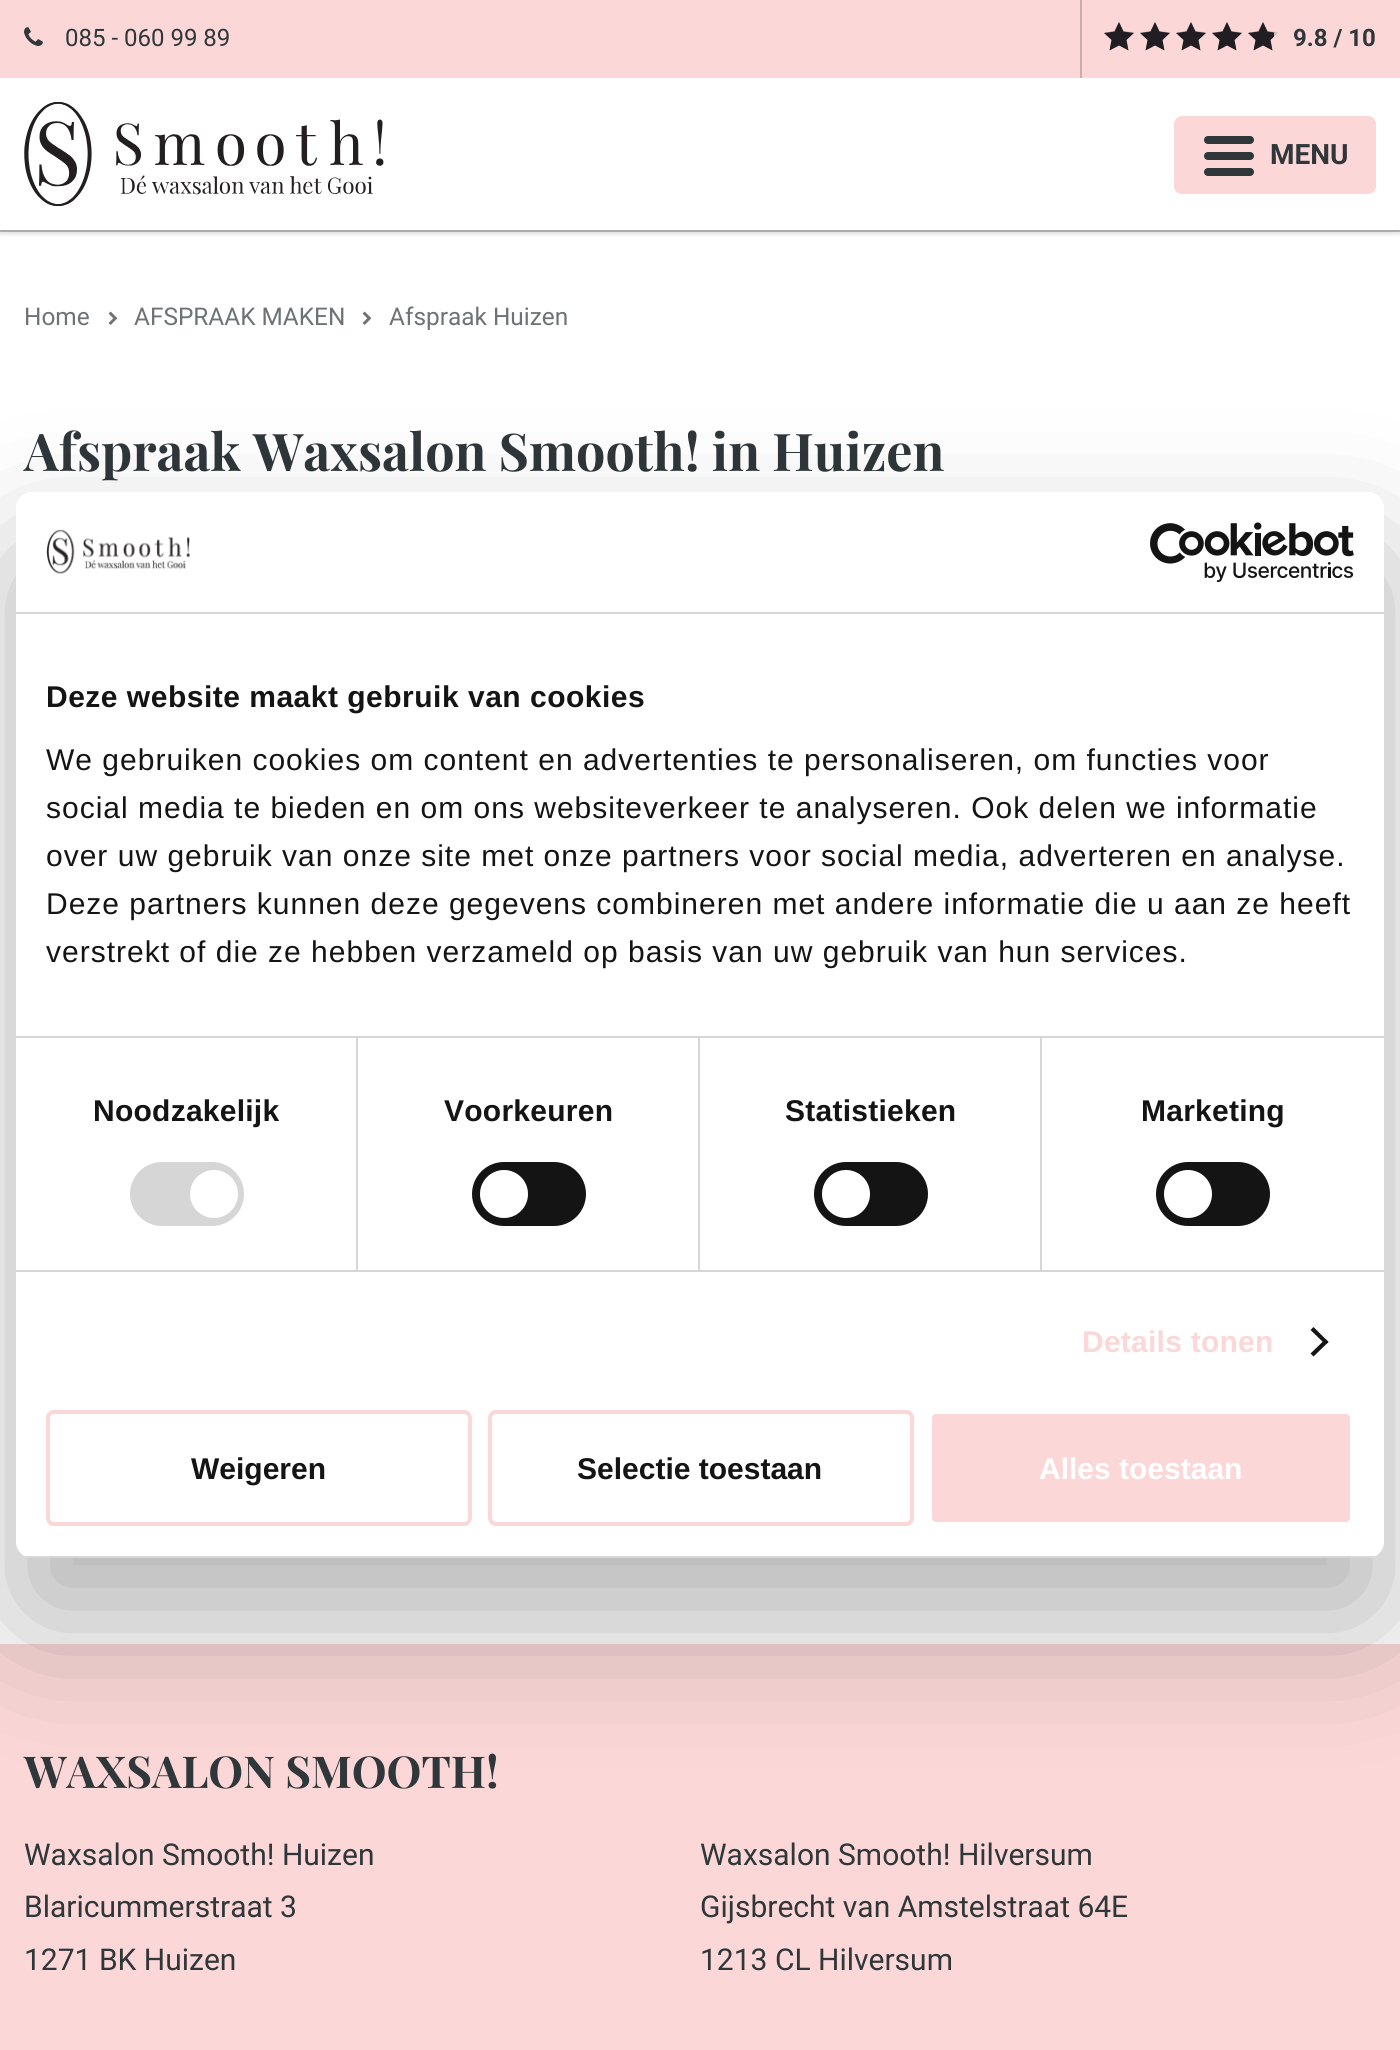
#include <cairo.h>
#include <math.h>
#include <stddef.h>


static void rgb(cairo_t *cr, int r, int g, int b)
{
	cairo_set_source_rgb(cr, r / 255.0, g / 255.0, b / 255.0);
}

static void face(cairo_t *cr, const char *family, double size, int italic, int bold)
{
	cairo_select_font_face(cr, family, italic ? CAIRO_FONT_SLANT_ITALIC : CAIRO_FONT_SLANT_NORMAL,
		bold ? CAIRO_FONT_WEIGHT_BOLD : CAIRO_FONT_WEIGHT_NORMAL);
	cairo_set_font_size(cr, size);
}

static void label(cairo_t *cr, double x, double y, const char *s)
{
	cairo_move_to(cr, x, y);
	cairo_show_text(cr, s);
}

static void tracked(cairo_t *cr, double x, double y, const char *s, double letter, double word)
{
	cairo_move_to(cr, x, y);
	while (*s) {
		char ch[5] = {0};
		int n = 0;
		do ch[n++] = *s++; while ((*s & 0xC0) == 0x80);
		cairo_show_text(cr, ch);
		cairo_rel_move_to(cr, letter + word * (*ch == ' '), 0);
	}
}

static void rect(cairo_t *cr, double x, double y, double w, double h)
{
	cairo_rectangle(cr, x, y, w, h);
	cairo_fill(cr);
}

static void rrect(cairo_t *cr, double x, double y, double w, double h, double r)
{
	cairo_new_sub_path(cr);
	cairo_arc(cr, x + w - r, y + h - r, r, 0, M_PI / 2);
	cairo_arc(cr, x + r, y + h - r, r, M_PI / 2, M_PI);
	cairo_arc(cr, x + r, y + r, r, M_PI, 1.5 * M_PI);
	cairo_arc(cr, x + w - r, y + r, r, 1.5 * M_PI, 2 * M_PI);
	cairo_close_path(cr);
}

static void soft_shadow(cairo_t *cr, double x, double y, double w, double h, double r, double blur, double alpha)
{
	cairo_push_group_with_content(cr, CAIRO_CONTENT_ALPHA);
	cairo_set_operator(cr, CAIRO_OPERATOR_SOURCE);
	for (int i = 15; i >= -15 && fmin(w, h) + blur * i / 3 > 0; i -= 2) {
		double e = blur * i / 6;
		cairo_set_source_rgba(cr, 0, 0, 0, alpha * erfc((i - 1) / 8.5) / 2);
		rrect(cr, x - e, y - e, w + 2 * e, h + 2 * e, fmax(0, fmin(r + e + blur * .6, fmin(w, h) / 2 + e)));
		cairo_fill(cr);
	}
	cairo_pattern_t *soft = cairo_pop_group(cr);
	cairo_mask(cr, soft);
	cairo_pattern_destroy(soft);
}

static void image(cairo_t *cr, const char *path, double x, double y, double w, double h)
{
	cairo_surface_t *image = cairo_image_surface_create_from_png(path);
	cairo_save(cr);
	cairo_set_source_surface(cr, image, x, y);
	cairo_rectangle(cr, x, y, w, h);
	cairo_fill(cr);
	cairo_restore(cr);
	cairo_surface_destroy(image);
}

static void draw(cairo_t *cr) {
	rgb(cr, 255, 255, 255);
	cairo_paint(cr);
	rgb(cr, 204, 204, 204);
	rect(cr, 0, 230, 1400, 2);
	cairo_save(cr);
	cairo_rectangle(cr, 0, 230, 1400, 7);
	cairo_clip(cr);
	rgb(cr, 0, 0, 0);
	soft_shadow(cr, 0, 78, 1400, 152, 0, 4, 0.4);
	cairo_restore(cr);
	rgb(cr, 251, 215, 215);
	rect(cr, 0, 0, 1400, 78);
	image(cr, "image0.png", 24, 27, 19, 19);
	face(cr, "Roboto", 24, 0, 0);
	rgb(cr, 47, 55, 58);
	label(cr, 65, 46, "085 - 060 99 89");
	rgb(cr, 201, 172, 172);
	rect(cr, 1080, 0, 2, 78);
	image(cr, "image1.png", 1104, 22, 30, 28);
	rgb(cr, 33, 29, 34);
	cairo_new_path(cr);
	cairo_move_to(cr, 1119, 22);
	cairo_line_to(cr, 1123.5, 31.5);
	cairo_line_to(cr, 1134, 33);
	cairo_line_to(cr, 1126.5, 40);
	cairo_line_to(cr, 1128.5, 50.5);
	cairo_line_to(cr, 1119, 45.5);
	cairo_line_to(cr, 1109.5, 50.5);
	cairo_line_to(cr, 1111.5, 40);
	cairo_line_to(cr, 1104, 33);
	cairo_line_to(cr, 1114.5, 31.5);
	cairo_close_path(cr);
	cairo_fill(cr);
	image(cr, "image1.png", 1140, 22, 30, 28);
	cairo_new_path(cr);
	cairo_move_to(cr, 1155, 22);
	cairo_line_to(cr, 1159.5, 31.5);
	cairo_line_to(cr, 1170, 33);
	cairo_line_to(cr, 1162.5, 40);
	cairo_line_to(cr, 1164.5, 50.5);
	cairo_line_to(cr, 1155, 45.5);
	cairo_line_to(cr, 1145.5, 50.5);
	cairo_line_to(cr, 1147.5, 40);
	cairo_line_to(cr, 1140, 33);
	cairo_line_to(cr, 1150.5, 31.5);
	cairo_close_path(cr);
	cairo_fill(cr);
	image(cr, "image1.png", 1176, 22, 30, 28);
	cairo_new_path(cr);
	cairo_move_to(cr, 1191, 22);
	cairo_line_to(cr, 1195.5, 31.5);
	cairo_line_to(cr, 1206, 33);
	cairo_line_to(cr, 1198.5, 40);
	cairo_line_to(cr, 1200.5, 50.5);
	cairo_line_to(cr, 1191, 45.5);
	cairo_line_to(cr, 1181.5, 50.5);
	cairo_line_to(cr, 1183.5, 40);
	cairo_line_to(cr, 1176, 33);
	cairo_line_to(cr, 1186.5, 31.5);
	cairo_close_path(cr);
	cairo_fill(cr);
	image(cr, "image1.png", 1212, 22, 30, 28);
	cairo_new_path(cr);
	cairo_move_to(cr, 1227, 22);
	cairo_line_to(cr, 1231.5, 31.5);
	cairo_line_to(cr, 1242, 33);
	cairo_line_to(cr, 1234.5, 40);
	cairo_line_to(cr, 1236.5, 50.5);
	cairo_line_to(cr, 1227, 45.5);
	cairo_line_to(cr, 1217.5, 50.5);
	cairo_line_to(cr, 1219.5, 40);
	cairo_line_to(cr, 1212, 33);
	cairo_line_to(cr, 1222.5, 31.5);
	cairo_close_path(cr);
	cairo_fill(cr);
	image(cr, "image1.png", 1248, 22, 30, 28);
	cairo_save(cr);
	cairo_rectangle(cr, 1248, 22, 26, 30);
	cairo_clip(cr);
	cairo_new_path(cr);
	cairo_move_to(cr, 1263, 22);
	cairo_line_to(cr, 1267.5, 31.5);
	cairo_line_to(cr, 1278, 33);
	cairo_line_to(cr, 1270.5, 40);
	cairo_line_to(cr, 1272.5, 50.5);
	cairo_line_to(cr, 1263, 45.5);
	cairo_line_to(cr, 1253.5, 50.5);
	cairo_line_to(cr, 1255.5, 40);
	cairo_line_to(cr, 1248, 33);
	cairo_line_to(cr, 1258.5, 31.5);
	cairo_close_path(cr);
	cairo_fill(cr);
	cairo_restore(cr);
	face(cr, "Roboto", 24, 0, 1);
	rgb(cr, 47, 55, 58);
	label(cr, 1293, 46, "9.8 / 10");
	image(cr, "image2.png", 24, 102, 360, 104);
	rgb(cr, 251, 215, 215);
	rrect(cr, 1174, 116, 202, 78, 8);
	cairo_fill(cr);
	rgb(cr, 47, 55, 58);
	rrect(cr, 1204, 152, 50, 8, 4);
	cairo_fill(cr);
	rrect(cr, 1204, 136, 50, 8, 4);
	cairo_fill(cr);
	rrect(cr, 1204, 168, 50, 8, 4);
	cairo_fill(cr);
	face(cr, "Roboto", 28, 0, 1);
	label(cr, 1270, 164, "MENU");
	face(cr, "Roboto", 24.4, 0, 0);
	rgb(cr, 109, 115, 117);
	label(cr, 24, 325, "Home");
	image(cr, "image3.png", 108, 311, 10, 14);
	label(cr, 134, 325, "AFSPRAAK MAKEN");
	image(cr, "image3.png", 362, 311, 10, 14);
	label(cr, 389, 325, "Afspraak Huizen");
	face(cr, "Playfair Display", 52, 0, 1);
	rgb(cr, 47, 55, 58);
	label(cr, 24, 471, "Afspraak Waxsalon Smooth! in Huizen");
	rgb(cr, 251, 215, 215);
	rect(cr, 0, 1644, 1400, 406);
	face(cr, "Playfair Display", 44, 0, 1);
	rgb(cr, 47, 55, 58);
	label(cr, 24, 1788, "WAXSALON SMOOTH!");
	face(cr, "Roboto", 30, 0, 0);
	label(cr, 24, 1865, "Waxsalon Smooth! Huizen");
	label(cr, 24, 1917, "Blaricummerstraat 3");
	label(cr, 24, 1970, "1271 BK Huizen");
	label(cr, 700, 1865, "Waxsalon Smooth! Hilversum");
	label(cr, 700, 1917, "Gijsbrecht van Amstelstraat 64E");
	label(cr, 700, 1970, "1213 CL Hilversum");
	rgb(cr, 0, 0, 0);
	soft_shadow(cr, 16, 556, 1368, 1066, 16, 68, 0.3);
	rgb(cr, 255, 255, 255);
	rrect(cr, 16, 492, 1368, 1066, 16);
	cairo_fill(cr);
	rgb(cr, 214, 214, 214);
	rect(cr, 16, 612, 1368, 2);
	image(cr, "image4.png", 46, 529, 144, 45);
	image(cr, "image5.png", 1150, 522, 204, 60);
	rect(cr, 16, 1036, 1368, 2);
	face(cr, "Liberation Sans", 30, 0, 1);
	rgb(cr, 20, 20, 20);
	tracked(cr, 46, 707, "Deze website maakt gebruik van cookies", 0.5, 0);
	face(cr, "Liberation Sans", 30, 0, 0);
	tracked(cr, 46, 770, "We gebruiken cookies om content en advertenties te personaliseren, om functies voor", 1, 0);
	tracked(cr, 46, 818, "social media te bieden en om ons websiteverkeer te analyseren. Ook delen we informatie", 1, 0);
	tracked(cr, 46, 866, "over uw gebruik van onze site met onze partners voor social media, adverteren en analyse.", 1, 0);
	tracked(cr, 46, 914, "Deze partners kunnen deze gegevens combineren met andere informatie die u aan ze heeft", 1, 0);
	tracked(cr, 46, 962, "verstrekt of die ze hebben verzameld op basis van uw gebruik van hun services.", 1, 0);
	rgb(cr, 214, 214, 214);
	rect(cr, 16, 1270, 1368, 2);
	rect(cr, 356, 1038, 2, 232);
	face(cr, "Liberation Sans", 30, 0, 1);
	rgb(cr, 20, 20, 20);
	tracked(cr, 93, 1121, "Noodzakelijk", 0.25, 0);
	rgb(cr, 214, 214, 214);
	rrect(cr, 130, 1162, 114, 64, 32);
	cairo_fill(cr);
	rgb(cr, 255, 255, 255);
	cairo_arc(cr, 214, 1194, 24, 0, 2 * M_PI);
	cairo_fill(cr);
	rgb(cr, 214, 214, 214);
	rect(cr, 698, 1038, 2, 232);
	rgb(cr, 20, 20, 20);
	tracked(cr, 444, 1121, "Voorkeuren", 0.25, 0);
	rrect(cr, 472, 1162, 114, 64, 32);
	cairo_fill(cr);
	rgb(cr, 255, 255, 255);
	cairo_arc(cr, 504, 1194, 24, 0, 2 * M_PI);
	cairo_fill(cr);
	rgb(cr, 214, 214, 214);
	rect(cr, 1040, 1038, 2, 232);
	rgb(cr, 20, 20, 20);
	tracked(cr, 785, 1121, "Statistieken", 0.25, 0);
	rrect(cr, 814, 1162, 114, 64, 32);
	cairo_fill(cr);
	rgb(cr, 255, 255, 255);
	cairo_arc(cr, 846, 1194, 24, 0, 2 * M_PI);
	cairo_fill(cr);
	rgb(cr, 20, 20, 20);
	tracked(cr, 1141, 1121, "Marketing", 0.25, 0);
	rrect(cr, 1156, 1162, 114, 64, 32);
	cairo_fill(cr);
	rgb(cr, 255, 255, 255);
	cairo_arc(cr, 1188, 1194, 24, 0, 2 * M_PI);
	cairo_fill(cr);
	rgb(cr, 251, 215, 215);
	tracked(cr, 1082, 1352, "Details tonen", 0.25, 0);
	rgb(cr, 20, 20, 20);
	cairo_new_path(cr);
	cairo_move_to(cr, 1313.5, 1327);
	cairo_line_to(cr, 1328.5, 1342);
	cairo_line_to(cr, 1325.5, 1344.5);
	cairo_line_to(cr, 1310.5, 1330);
	cairo_close_path(cr);
	cairo_fill(cr);
	cairo_new_path(cr);
	cairo_move_to(cr, 1325.5, 1339);
	cairo_line_to(cr, 1328.5, 1342);
	cairo_line_to(cr, 1313.5, 1356.5);
	cairo_line_to(cr, 1310.5, 1353.5);
	cairo_close_path(cr);
	cairo_fill(cr);
	cairo_save(cr);
	rrect(cr, 16, 492, 1368, 1066, 16);
	cairo_clip(cr);
	rgb(cr, 214, 214, 214);
	rect(cr, 16, 1556, 1368, 2);
	cairo_restore(cr);
	rrect(cr, 48, 1412, 422, 112, 6);
	rgb(cr, 251, 215, 215);
	cairo_set_line_width(cr, 4);
	cairo_stroke(cr);
	rgb(cr, 20, 20, 20);
	label(cr, 191, 1479, "Weigeren");
	rrect(cr, 490, 1412, 422, 112, 6);
	rgb(cr, 251, 215, 215);
	cairo_stroke(cr);
	rgb(cr, 20, 20, 20);
	label(cr, 577, 1479, "Selectie toestaan");
	rgb(cr, 251, 215, 215);
	rrect(cr, 930, 1412, 422, 112, 6);
	cairo_fill_preserve(cr);
	rgb(cr, 255, 255, 255);
	cairo_stroke(cr);
	label(cr, 1039, 1479, "Alles toestaan");
}

int main(void) {
	cairo_surface_t *surface = cairo_image_surface_create(CAIRO_FORMAT_RGB24, 1400, 2050);
	cairo_t *cr = cairo_create(surface);
	cairo_font_options_t *options = cairo_font_options_create();
	cairo_font_options_set_hint_metrics(options, CAIRO_HINT_METRICS_OFF);
	cairo_font_options_set_hint_style(options, CAIRO_HINT_STYLE_NONE);
	cairo_set_font_options(cr, options);
	cairo_set_miter_limit(cr, 4);
	draw(cr);
	cairo_surface_write_to_png(surface, "render.png");
	cairo_font_options_destroy(options);
	cairo_destroy(cr);
	cairo_surface_destroy(surface);
	return 0;
}
